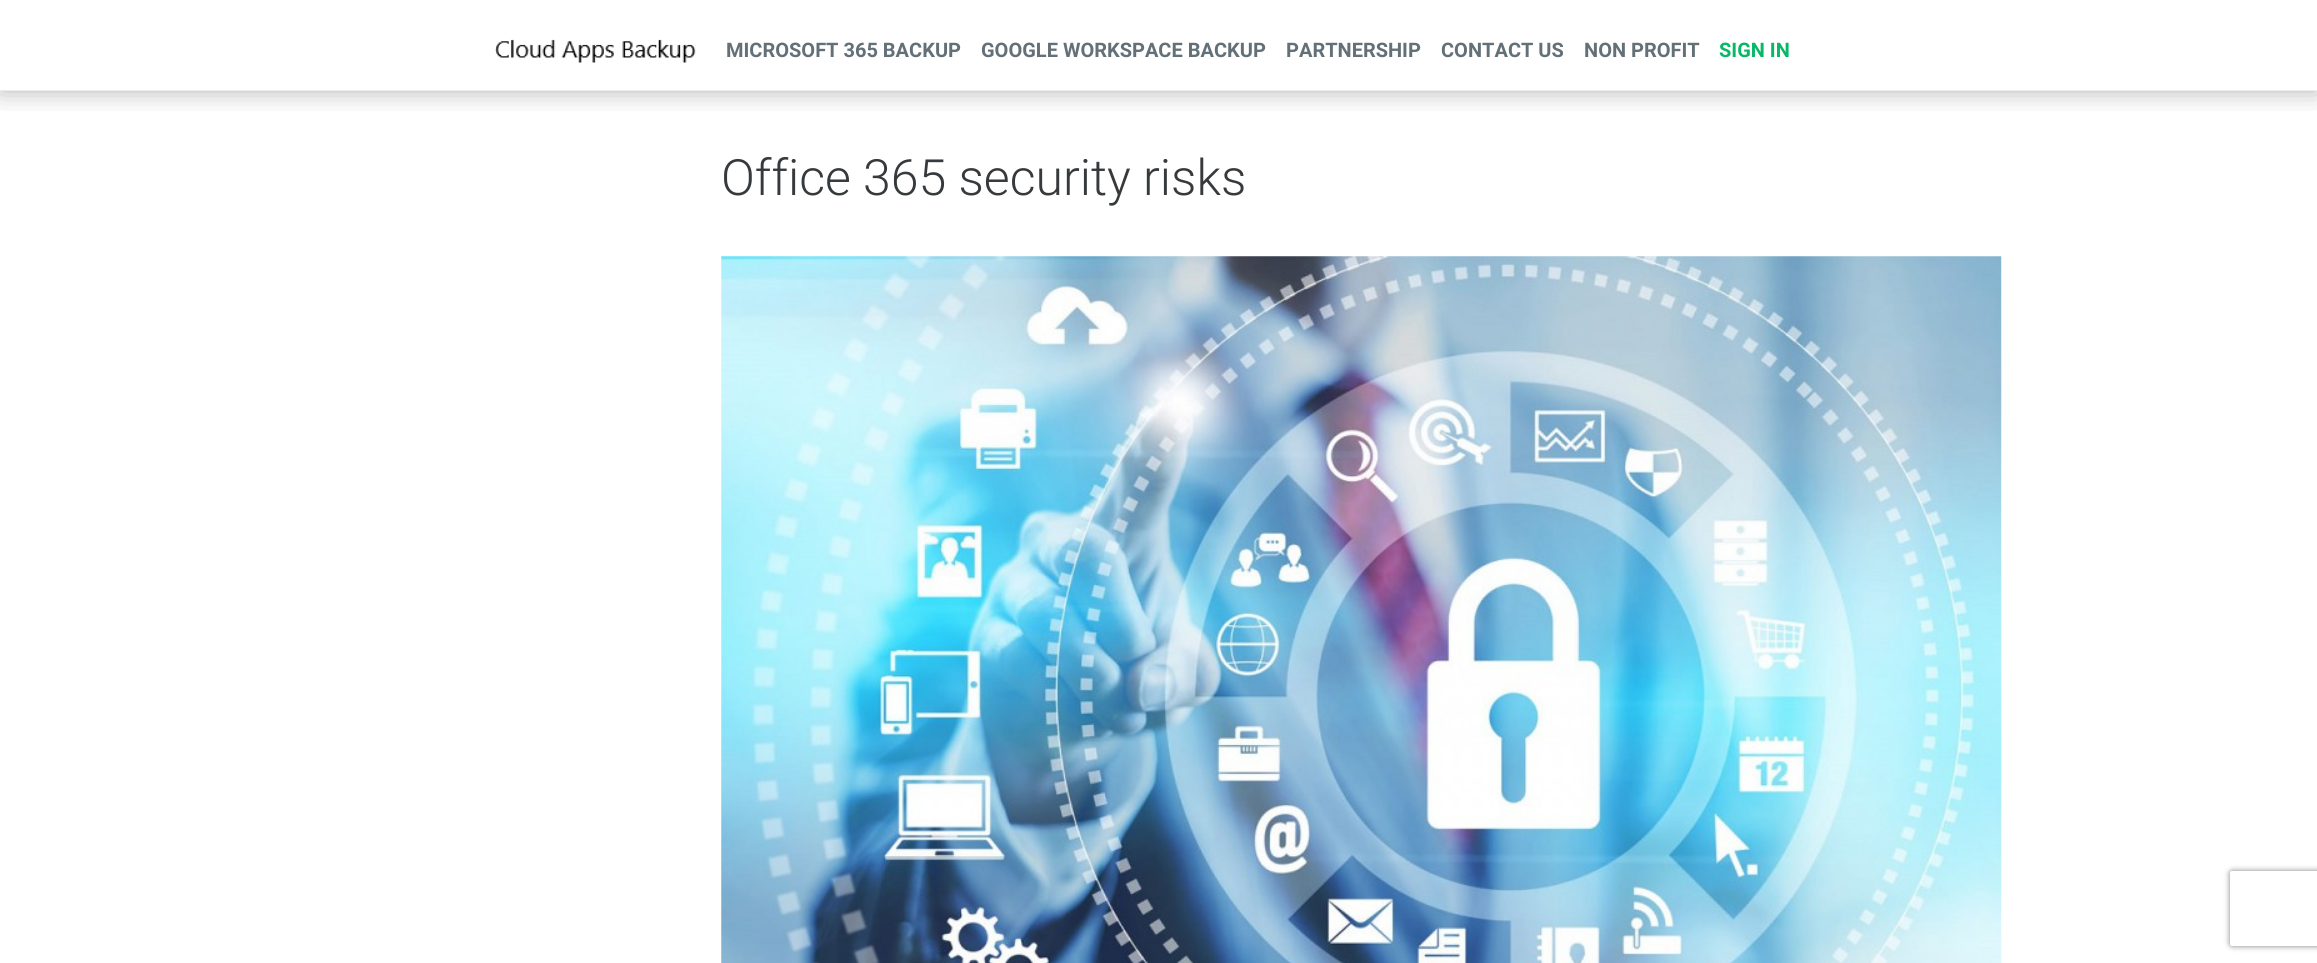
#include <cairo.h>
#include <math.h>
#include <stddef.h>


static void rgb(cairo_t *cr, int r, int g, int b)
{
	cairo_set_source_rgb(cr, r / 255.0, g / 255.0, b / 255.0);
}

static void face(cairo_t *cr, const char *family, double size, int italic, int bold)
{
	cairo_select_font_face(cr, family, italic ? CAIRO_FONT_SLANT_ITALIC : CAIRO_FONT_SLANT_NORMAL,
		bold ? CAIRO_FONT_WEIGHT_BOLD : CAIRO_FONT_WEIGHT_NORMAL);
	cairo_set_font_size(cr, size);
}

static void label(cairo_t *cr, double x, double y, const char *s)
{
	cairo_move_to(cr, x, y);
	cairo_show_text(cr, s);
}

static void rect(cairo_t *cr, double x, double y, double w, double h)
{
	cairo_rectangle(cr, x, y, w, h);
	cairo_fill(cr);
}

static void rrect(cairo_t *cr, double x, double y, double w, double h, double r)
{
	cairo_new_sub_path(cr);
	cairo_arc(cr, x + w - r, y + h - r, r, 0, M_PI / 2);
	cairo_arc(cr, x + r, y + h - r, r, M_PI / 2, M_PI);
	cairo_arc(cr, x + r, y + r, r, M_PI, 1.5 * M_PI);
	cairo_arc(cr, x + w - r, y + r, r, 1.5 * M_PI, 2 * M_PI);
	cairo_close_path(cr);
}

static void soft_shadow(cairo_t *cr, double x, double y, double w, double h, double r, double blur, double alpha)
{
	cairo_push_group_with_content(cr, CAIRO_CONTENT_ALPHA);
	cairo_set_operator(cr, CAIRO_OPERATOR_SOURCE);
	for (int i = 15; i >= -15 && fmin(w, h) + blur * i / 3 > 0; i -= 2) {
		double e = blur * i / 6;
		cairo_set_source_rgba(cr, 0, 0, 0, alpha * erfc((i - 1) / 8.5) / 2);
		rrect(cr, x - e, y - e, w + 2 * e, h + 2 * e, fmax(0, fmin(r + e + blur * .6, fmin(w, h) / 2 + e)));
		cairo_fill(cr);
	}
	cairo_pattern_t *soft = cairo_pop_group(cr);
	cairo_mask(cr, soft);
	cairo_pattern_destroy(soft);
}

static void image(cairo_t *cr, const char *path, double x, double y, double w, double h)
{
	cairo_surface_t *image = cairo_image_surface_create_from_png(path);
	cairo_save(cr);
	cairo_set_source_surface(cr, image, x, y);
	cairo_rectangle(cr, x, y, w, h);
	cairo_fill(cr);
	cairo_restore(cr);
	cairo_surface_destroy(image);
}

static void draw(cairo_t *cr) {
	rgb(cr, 255, 255, 255);
	cairo_paint(cr);
	cairo_save(cr);
	cairo_rectangle(cr, 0, 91, 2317, 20);
	cairo_clip(cr);
	rgb(cr, 0, 0, 0);
	soft_shadow(cr, 0, 0, 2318, 91, 0, 13, 0.3);
	cairo_restore(cr);
	rgb(cr, 236, 237, 237);
	rect(cr, 0, 90, 2317, 1);
	image(cr, "image0.png", 495, 39, 201, 24);
	face(cr, "Roboto", 20, 0, 1);
	rgb(cr, 99, 112, 120);
	label(cr, 726, 57, "MICROSOFT 365 BACKUP");
	label(cr, 981, 57, "GOOGLE WORKSPACE BACKUP");
	label(cr, 1286, 57, "PARTNERSHIP");
	label(cr, 1441, 57, "CONTACT US");
	label(cr, 1584, 57, "NON PROFIT");
	rgb(cr, 9, 184, 103);
	label(cr, 1719, 57, "SIGN IN");
	face(cr, "Roboto Light", 50, 0, 0);
	rgb(cr, 55, 58, 60);
	label(cr, 721, 195, "Office 365 security risks");
	image(cr, "image1.png", 721, 256, 1281, 707);
	cairo_save(cr);
	cairo_set_fill_rule(cr, CAIRO_FILL_RULE_EVEN_ODD);
	cairo_new_path(cr);
	cairo_move_to(cr, 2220, 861);
	cairo_line_to(cr, 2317, 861);
	cairo_line_to(cr, 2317, 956);
	cairo_line_to(cr, 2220, 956);
	cairo_close_path(cr);
	cairo_move_to(cr, 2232.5, 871);
	cairo_line_to(cr, 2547.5, 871);
	cairo_curve_to(cr, 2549, 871, 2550, 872, 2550, 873.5);
	cairo_line_to(cr, 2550, 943.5);
	cairo_curve_to(cr, 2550, 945, 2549, 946, 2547.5, 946);
	cairo_line_to(cr, 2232.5, 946);
	cairo_curve_to(cr, 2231, 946, 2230, 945, 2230, 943.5);
	cairo_line_to(cr, 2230, 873.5);
	cairo_curve_to(cr, 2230, 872, 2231, 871, 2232.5, 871);
	cairo_close_path(cr);
	cairo_clip(cr);
	rgb(cr, 128, 128, 128);
	soft_shadow(cr, 2230, 871, 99, 75, 2.5, 3, 1);
	cairo_restore(cr);
}

int main(void) {
	cairo_surface_t *surface = cairo_image_surface_create(CAIRO_FORMAT_RGB24, 2317, 963);
	cairo_t *cr = cairo_create(surface);
	cairo_font_options_t *options = cairo_font_options_create();
	cairo_font_options_set_hint_metrics(options, CAIRO_HINT_METRICS_OFF);
	cairo_font_options_set_hint_style(options, CAIRO_HINT_STYLE_NONE);
	cairo_set_font_options(cr, options);
	cairo_set_miter_limit(cr, 4);
	draw(cr);
	cairo_surface_write_to_png(surface, "render.png");
	cairo_font_options_destroy(options);
	cairo_destroy(cr);
	cairo_surface_destroy(surface);
	return 0;
}
